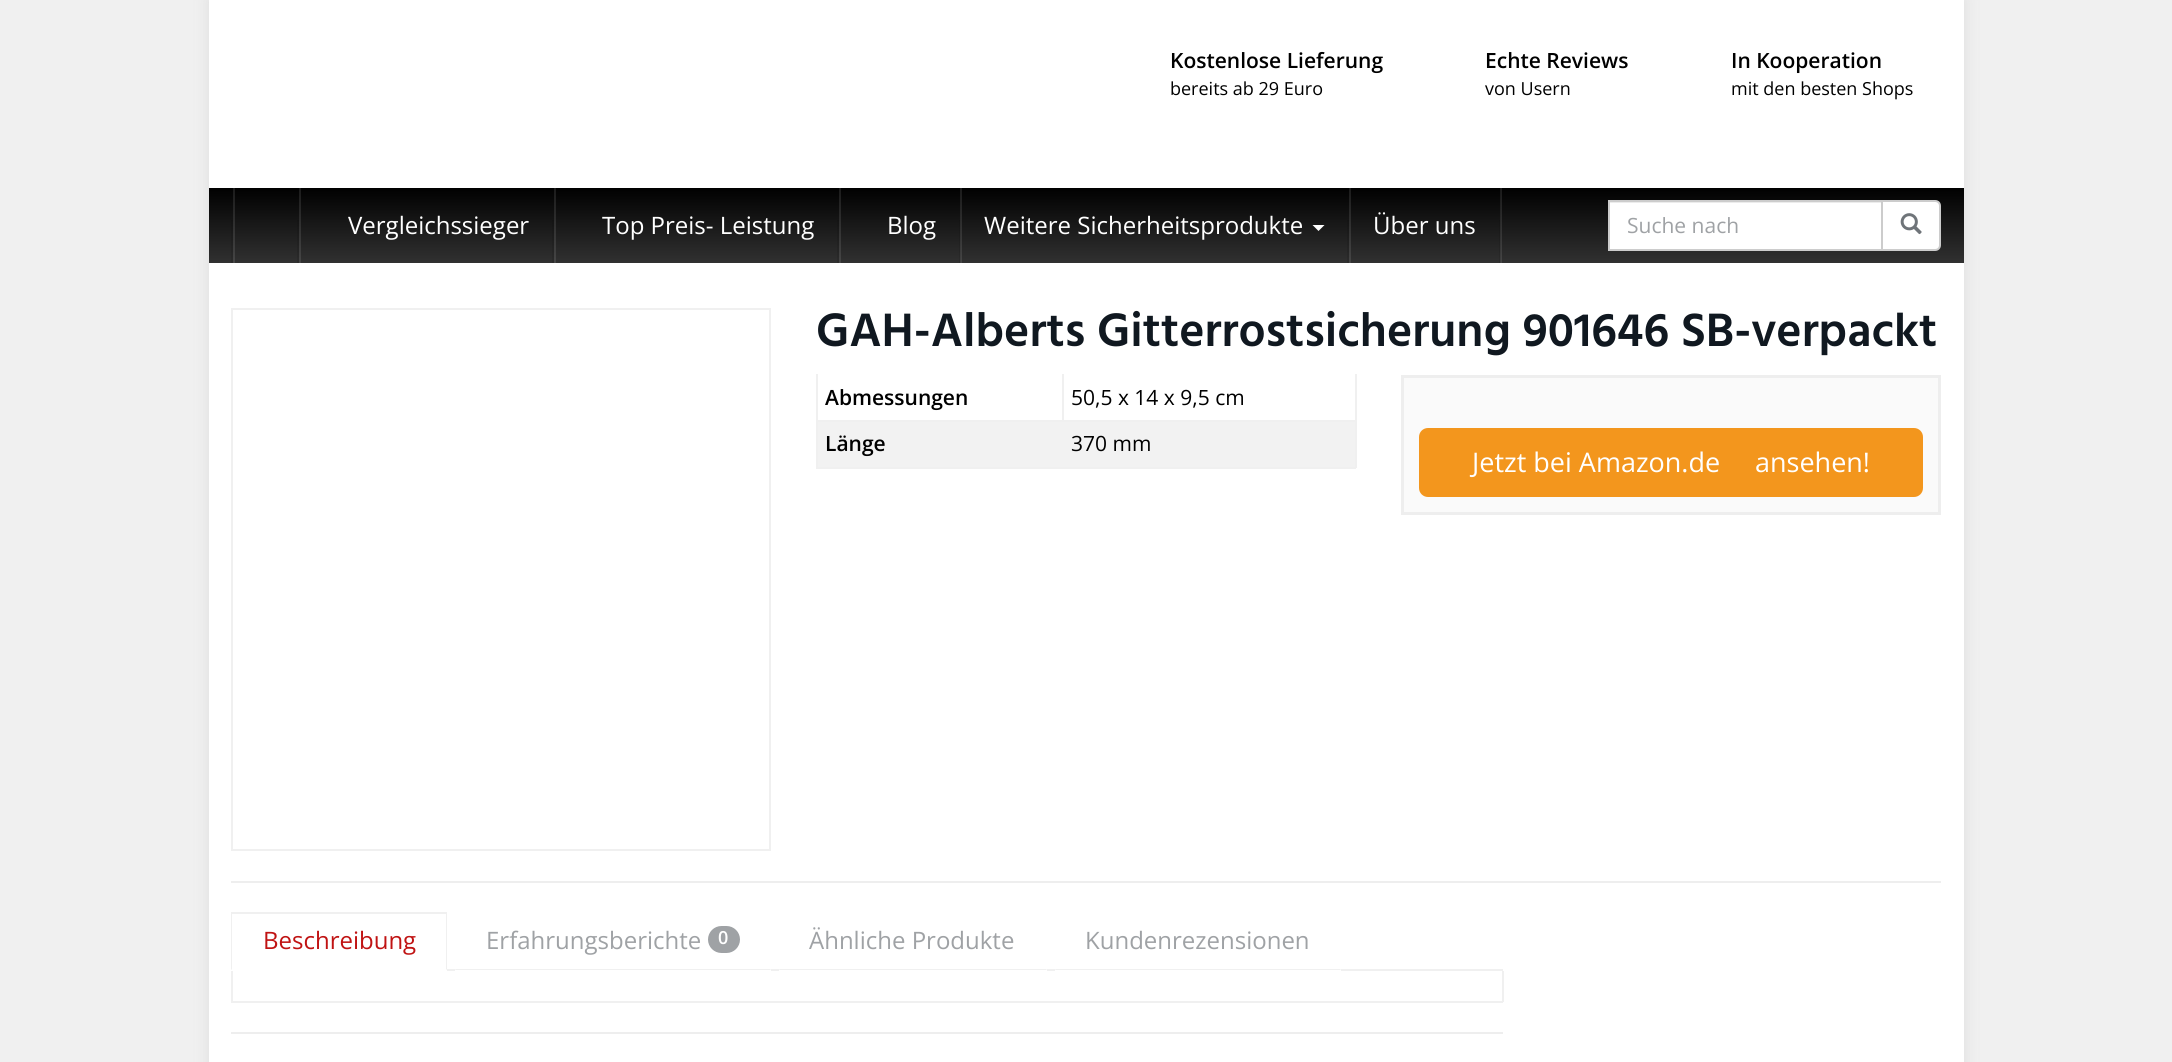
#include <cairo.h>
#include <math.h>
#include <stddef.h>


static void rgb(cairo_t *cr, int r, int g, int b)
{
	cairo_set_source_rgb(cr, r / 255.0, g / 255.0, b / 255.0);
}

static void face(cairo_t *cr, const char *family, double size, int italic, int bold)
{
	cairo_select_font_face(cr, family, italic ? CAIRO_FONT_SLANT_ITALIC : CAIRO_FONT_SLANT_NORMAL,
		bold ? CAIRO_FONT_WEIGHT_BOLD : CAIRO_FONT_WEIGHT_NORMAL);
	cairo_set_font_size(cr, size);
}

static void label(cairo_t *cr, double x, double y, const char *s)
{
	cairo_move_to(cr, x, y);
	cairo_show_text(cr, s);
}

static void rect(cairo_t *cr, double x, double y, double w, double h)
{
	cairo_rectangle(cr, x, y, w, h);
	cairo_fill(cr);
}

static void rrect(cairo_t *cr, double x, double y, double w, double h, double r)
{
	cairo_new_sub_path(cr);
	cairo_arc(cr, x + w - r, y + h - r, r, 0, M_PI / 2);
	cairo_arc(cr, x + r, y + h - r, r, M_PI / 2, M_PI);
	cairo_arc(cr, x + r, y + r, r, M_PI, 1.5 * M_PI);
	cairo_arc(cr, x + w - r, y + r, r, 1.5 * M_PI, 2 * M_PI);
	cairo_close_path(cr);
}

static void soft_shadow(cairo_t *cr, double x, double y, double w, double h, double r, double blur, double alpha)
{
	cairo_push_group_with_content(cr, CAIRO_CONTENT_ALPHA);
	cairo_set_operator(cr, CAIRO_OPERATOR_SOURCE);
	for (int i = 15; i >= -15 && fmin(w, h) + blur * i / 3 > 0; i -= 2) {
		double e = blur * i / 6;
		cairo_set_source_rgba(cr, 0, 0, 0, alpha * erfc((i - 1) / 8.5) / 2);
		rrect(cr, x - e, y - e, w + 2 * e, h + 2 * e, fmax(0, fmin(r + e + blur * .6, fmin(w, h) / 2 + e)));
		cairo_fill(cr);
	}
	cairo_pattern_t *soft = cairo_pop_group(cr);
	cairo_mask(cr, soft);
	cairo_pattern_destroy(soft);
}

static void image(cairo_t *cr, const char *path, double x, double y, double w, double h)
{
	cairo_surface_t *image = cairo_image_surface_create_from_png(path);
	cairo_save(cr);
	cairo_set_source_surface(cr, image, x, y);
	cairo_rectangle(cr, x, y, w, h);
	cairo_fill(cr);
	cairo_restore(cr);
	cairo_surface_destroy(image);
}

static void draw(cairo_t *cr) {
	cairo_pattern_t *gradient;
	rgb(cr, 240, 240, 240);
	cairo_paint(cr);
	rgb(cr, 221, 221, 221);
	soft_shadow(cr, 209, 0, 1755, 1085, 0, 7.5, 1);
	rgb(cr, 255, 255, 255);
	rect(cr, 209, 0, 1755, 1062);
	face(cr, "Open Sans SemiBold", 21, 0, 0);
	rgb(cr, 0, 0, 0);
	label(cr, 1170, 68, "Kostenlose Lieferung");
	face(cr, "Open Sans", 18, 0, 0);
	label(cr, 1170, 95, "bereits ab 29 Euro");
	face(cr, "Open Sans SemiBold", 21, 0, 0);
	label(cr, 1485, 68, "Echte Reviews");
	face(cr, "Open Sans", 18, 0, 0);
	label(cr, 1485, 95, "von Usern");
	face(cr, "Open Sans SemiBold", 21, 0, 0);
	label(cr, 1731, 68, "In Kooperation");
	face(cr, "Open Sans", 18, 0, 0);
	label(cr, 1731, 95, "mit den besten Shops");
	gradient = cairo_pattern_create_linear(1086, 187, 1086, 263);
	cairo_pattern_add_color_stop_rgba(gradient, 0, 0, 0, 0, 1);
	cairo_pattern_add_color_stop_rgba(gradient, 1, 0.192, 0.192, 0.192, 1);
	cairo_set_source(cr, gradient);
	cairo_pattern_destroy(gradient);
	rect(cr, 209, 188, 1755, 75);
	gradient = cairo_pattern_create_linear(1086, 187, 1086, 263);
	cairo_pattern_add_color_stop_rgba(gradient, 0, 0.102, 0.102, 0.102, 1);
	cairo_pattern_add_color_stop_rgba(gradient, 1, 0.275, 0.275, 0.275, 1);
	cairo_set_source(cr, gradient);
	cairo_pattern_destroy(gradient);
	rect(cr, 1349, 188, 2, 75);
	gradient = cairo_pattern_create_linear(1086, 187, 1086, 263);
	cairo_pattern_add_color_stop_rgba(gradient, 0, 0, 0, 0, 1);
	cairo_pattern_add_color_stop_rgba(gradient, 1, 0.173, 0.173, 0.173, 1);
	cairo_set_source(cr, gradient);
	cairo_pattern_destroy(gradient);
	rect(cr, 1499, 220, 1, 43);
	gradient = cairo_pattern_create_linear(1086, 187, 1086, 263);
	cairo_pattern_add_color_stop_rgba(gradient, 0, 0.102, 0.102, 0.102, 1);
	cairo_pattern_add_color_stop_rgba(gradient, 1, 0.275, 0.275, 0.275, 1);
	cairo_set_source(cr, gradient);
	cairo_pattern_destroy(gradient);
	rect(cr, 961, 188, 1, 75);
	gradient = cairo_pattern_create_linear(1086, 187, 1086, 263);
	cairo_pattern_add_color_stop_rgba(gradient, 0, 0, 0, 0, 1);
	cairo_pattern_add_color_stop_rgba(gradient, 1, 0.173, 0.173, 0.173, 1);
	cairo_set_source(cr, gradient);
	cairo_pattern_destroy(gradient);
	rect(cr, 1347, 220, 2, 43);
	gradient = cairo_pattern_create_linear(1086, 187, 1086, 263);
	cairo_pattern_add_color_stop_rgba(gradient, 0, 0.102, 0.102, 0.102, 1);
	cairo_pattern_add_color_stop_rgba(gradient, 1, 0.275, 0.275, 0.275, 1);
	cairo_set_source(cr, gradient);
	cairo_pattern_destroy(gradient);
	rect(cr, 839, 188, 2, 75);
	gradient = cairo_pattern_create_linear(1086, 187, 1086, 263);
	cairo_pattern_add_color_stop_rgba(gradient, 0, 0, 0, 0, 1);
	cairo_pattern_add_color_stop_rgba(gradient, 1, 0.173, 0.173, 0.173, 1);
	cairo_set_source(cr, gradient);
	cairo_pattern_destroy(gradient);
	rect(cr, 959, 220, 1, 43);
	gradient = cairo_pattern_create_linear(1086, 187, 1086, 263);
	cairo_pattern_add_color_stop_rgba(gradient, 0, 0.102, 0.102, 0.102, 1);
	cairo_pattern_add_color_stop_rgba(gradient, 1, 0.255, 0.255, 0.255, 1);
	cairo_set_source(cr, gradient);
	cairo_pattern_destroy(gradient);
	rect(cr, 960, 188, 1, 75);
	gradient = cairo_pattern_create_linear(1086, 187, 1086, 263);
	cairo_pattern_add_color_stop_rgba(gradient, 0, 0.102, 0.102, 0.102, 1);
	cairo_pattern_add_color_stop_rgba(gradient, 1, 0.275, 0.275, 0.275, 1);
	cairo_set_source(cr, gradient);
	cairo_pattern_destroy(gradient);
	rect(cr, 554, 188, 2, 75);
	gradient = cairo_pattern_create_linear(1086, 187, 1086, 263);
	cairo_pattern_add_color_stop_rgba(gradient, 0, 0, 0, 0, 1);
	cairo_pattern_add_color_stop_rgba(gradient, 1, 0.173, 0.173, 0.173, 1);
	cairo_set_source(cr, gradient);
	cairo_pattern_destroy(gradient);
	rect(cr, 837, 220, 2, 43);
	gradient = cairo_pattern_create_linear(1086, 187, 1086, 263);
	cairo_pattern_add_color_stop_rgba(gradient, 0, 0.102, 0.102, 0.102, 1);
	cairo_pattern_add_color_stop_rgba(gradient, 1, 0.275, 0.275, 0.275, 1);
	cairo_set_source(cr, gradient);
	cairo_pattern_destroy(gradient);
	rect(cr, 299, 188, 2, 75);
	gradient = cairo_pattern_create_linear(1086, 187, 1086, 263);
	cairo_pattern_add_color_stop_rgba(gradient, 0, 0, 0, 0, 1);
	cairo_pattern_add_color_stop_rgba(gradient, 1, 0.173, 0.173, 0.173, 1);
	cairo_set_source(cr, gradient);
	cairo_pattern_destroy(gradient);
	rect(cr, 552, 220, 2, 43);
	gradient = cairo_pattern_create_linear(1086, 187, 1086, 263);
	cairo_pattern_add_color_stop_rgba(gradient, 0, 0.102, 0.102, 0.102, 1);
	cairo_pattern_add_color_stop_rgba(gradient, 1, 0.275, 0.275, 0.275, 1);
	cairo_set_source(cr, gradient);
	cairo_pattern_destroy(gradient);
	rect(cr, 233, 188, 2, 75);
	gradient = cairo_pattern_create_linear(1086, 187, 1086, 263);
	cairo_pattern_add_color_stop_rgba(gradient, 0, 0, 0, 0, 1);
	cairo_pattern_add_color_stop_rgba(gradient, 1, 0.173, 0.173, 0.173, 1);
	cairo_set_source(cr, gradient);
	cairo_pattern_destroy(gradient);
	rect(cr, 297, 220, 2, 43);
	rect(cr, 231, 220, 2, 43);
	gradient = cairo_pattern_create_linear(1086, 187, 1086, 263);
	cairo_pattern_add_color_stop_rgba(gradient, 0, 0.102, 0.102, 0.102, 1);
	cairo_pattern_add_color_stop_rgba(gradient, 1, 0.275, 0.275, 0.275, 1);
	cairo_set_source(cr, gradient);
	cairo_pattern_destroy(gradient);
	rect(cr, 1501, 188, 1, 75);
	gradient = cairo_pattern_create_linear(1086, 187, 1086, 263);
	cairo_pattern_add_color_stop_rgba(gradient, 0, 0.09, 0.09, 0.09, 1);
	cairo_pattern_add_color_stop_rgba(gradient, 1, 0.247, 0.247, 0.247, 1);
	cairo_set_source(cr, gradient);
	cairo_pattern_destroy(gradient);
	rect(cr, 1500, 188, 1, 75);
	face(cr, "Open Sans", 24, 0, 0);
	rgb(cr, 255, 255, 255);
	label(cr, 348, 234, "Vergleichssieger");
	label(cr, 602, 234, "Top Preis- Leistung");
	label(cr, 887, 234, "Blog");
	label(cr, 984, 234, "Weitere Sicherheitsprodukte");
	cairo_new_path(cr);
	cairo_move_to(cr, 1312.5, 225);
	cairo_line_to(cr, 1324.5, 225);
	cairo_line_to(cr, 1318.5, 231);
	cairo_close_path(cr);
	cairo_fill(cr);
	label(cr, 1373, 234, "Über uns");
	rect(cr, 1610, 203, 271, 46);
	rgb(cr, 236, 236, 236);
	rect(cr, 1610, 202, 271, 1);
	cairo_rectangle(cr, 1609, 201, 273, 49);
	rgb(cr, 204, 204, 204);
	cairo_stroke(cr);
	face(cr, "Open Sans", 21, 0, 0);
	rgb(cr, 159, 162, 165);
	label(cr, 1627, 233, "Suche nach");
	rgb(cr, 255, 255, 255);
	cairo_new_path(cr);
	cairo_move_to(cr, 1882, 201);
	cairo_line_to(cr, 1935, 201);
	cairo_curve_to(cr, 1938, 201, 1940, 203, 1940, 206);
	cairo_line_to(cr, 1940, 245);
	cairo_curve_to(cr, 1940, 248, 1938, 250, 1935, 250);
	cairo_line_to(cr, 1882, 250);
	cairo_close_path(cr);
	cairo_fill_preserve(cr);
	rgb(cr, 204, 204, 204);
	cairo_stroke(cr);
	image(cr, "image0.png", 1900, 213, 22, 22);
	cairo_rectangle(cr, 232, 309, 538, 541);
	rgb(cr, 240, 240, 240);
	cairo_stroke(cr);
	face(cr, "Hind SemiBold", 48, 0, 0);
	rgb(cr, 16, 24, 32);
	label(cr, 816, 346, "GAH-Alberts Gitterrostsicherung 901646 SB-verpackt");
	face(cr, "Open Sans SemiBold", 21, 0, 0);
	rgb(cr, 0, 0, 0);
	label(cr, 825, 405, "Abmessungen");
	rgb(cr, 240, 240, 240);
	rect(cr, 816, 420, 540, 2);
	rect(cr, 1062, 374, 2, 48);
	face(cr, "Open Sans", 21, 0, 0);
	rgb(cr, 0, 0, 0);
	label(cr, 1071, 405, "50,5 x 14 x 9,5 cm");
	rgb(cr, 242, 242, 242);
	rect(cr, 818, 422, 537, 45);
	rgb(cr, 240, 240, 240);
	rect(cr, 1355, 374, 2, 94);
	rect(cr, 816, 467, 540, 2);
	rect(cr, 816, 374, 2, 94);
	face(cr, "Open Sans SemiBold", 21, 0, 0);
	rgb(cr, 0, 0, 0);
	label(cr, 825, 451, "Länge");
	face(cr, "Open Sans", 21, 0, 0);
	label(cr, 1071, 451, "370 mm");
	rgb(cr, 250, 250, 250);
	cairo_rectangle(cr, 1402.5, 376.5, 537, 137);
	cairo_fill_preserve(cr);
	rgb(cr, 238, 238, 238);
	cairo_set_line_width(cr, 3);
	cairo_stroke(cr);
	rgb(cr, 243, 150, 29);
	rrect(cr, 1420, 429, 502, 67, 8);
	cairo_fill_preserve(cr);
	cairo_set_line_width(cr, 2);
	cairo_stroke(cr);
	face(cr, "Open Sans", 27, 0, 0);
	rgb(cr, 255, 255, 255);
	label(cr, 1472, 472, "Jetzt bei Amazon.de");
	label(cr, 1755, 472, "ansehen!");
	rgb(cr, 238, 238, 238);
	rect(cr, 231, 881, 1710, 2);
	rgb(cr, 240, 240, 240);
	rect(cr, 447, 969, 1056, 2);
	rect(cr, 231, 912, 216, 2);
	cairo_new_path(cr);
	cairo_move_to(cr, 447, 912);
	cairo_line_to(cr, 447, 970);
	cairo_line_to(cr, 446, 969);
	cairo_line_to(cr, 446, 914);
	cairo_close_path(cr);
	cairo_fill(cr);
	cairo_new_path(cr);
	cairo_move_to(cr, 231, 970);
	cairo_line_to(cr, 231, 912);
	cairo_line_to(cr, 232, 914);
	cairo_line_to(cr, 232, 969);
	cairo_close_path(cr);
	cairo_fill(cr);
	face(cr, "Open Sans", 24, 0, 0);
	rgb(cr, 192, 19, 19);
	label(cr, 263, 949, "Beschreibung");
	rgb(cr, 255, 255, 255);
	rect(cr, 455, 969, 316, 2);
	rgb(cr, 240, 240, 240);
	cairo_new_path(cr);
	cairo_move_to(cr, 771, 970);
	cairo_line_to(cr, 454, 970);
	cairo_line_to(cr, 456, 969);
	cairo_line_to(cr, 770, 969);
	cairo_close_path(cr);
	cairo_fill(cr);
	rgb(cr, 159, 162, 165);
	label(cr, 486, 949, "Erfahrungsberichte");
	rrect(cr, 708, 926, 32, 27, 13.5);
	cairo_fill(cr);
	face(cr, "Open Sans SemiBold", 18, 0, 0);
	rgb(cr, 255, 255, 255);
	label(cr, 718, 944, "0");
	rect(cr, 779, 969, 268, 2);
	rgb(cr, 240, 240, 240);
	cairo_new_path(cr);
	cairo_move_to(cr, 1047, 970);
	cairo_line_to(cr, 778, 970);
	cairo_line_to(cr, 780, 969);
	cairo_line_to(cr, 1046, 969);
	cairo_close_path(cr);
	cairo_fill(cr);
	face(cr, "Open Sans", 24, 0, 0);
	rgb(cr, 159, 162, 165);
	label(cr, 809, 949, "Ähnliche Produkte");
	rgb(cr, 255, 255, 255);
	rect(cr, 1055, 969, 286, 2);
	rgb(cr, 240, 240, 240);
	cairo_new_path(cr);
	cairo_move_to(cr, 1341, 970);
	cairo_line_to(cr, 1054, 970);
	cairo_line_to(cr, 1056, 969);
	cairo_line_to(cr, 1340, 969);
	cairo_close_path(cr);
	cairo_fill(cr);
	rgb(cr, 159, 162, 165);
	label(cr, 1085, 949, "Kundenrezensionen");
	rgb(cr, 240, 240, 240);
	rect(cr, 1502, 971, 2, 31);
	rect(cr, 231, 1001, 1272, 2);
	rect(cr, 231, 971, 2, 31);
	rgb(cr, 238, 238, 238);
	rect(cr, 231, 1032, 1272, 2);
}

int main(void) {
	cairo_surface_t *surface = cairo_image_surface_create(CAIRO_FORMAT_RGB24, 2172, 1062);
	cairo_t *cr = cairo_create(surface);
	cairo_font_options_t *options = cairo_font_options_create();
	cairo_font_options_set_hint_metrics(options, CAIRO_HINT_METRICS_OFF);
	cairo_font_options_set_hint_style(options, CAIRO_HINT_STYLE_NONE);
	cairo_set_font_options(cr, options);
	cairo_set_miter_limit(cr, 4);
	draw(cr);
	cairo_surface_write_to_png(surface, "render.png");
	cairo_font_options_destroy(options);
	cairo_destroy(cr);
	cairo_surface_destroy(surface);
	return 0;
}
